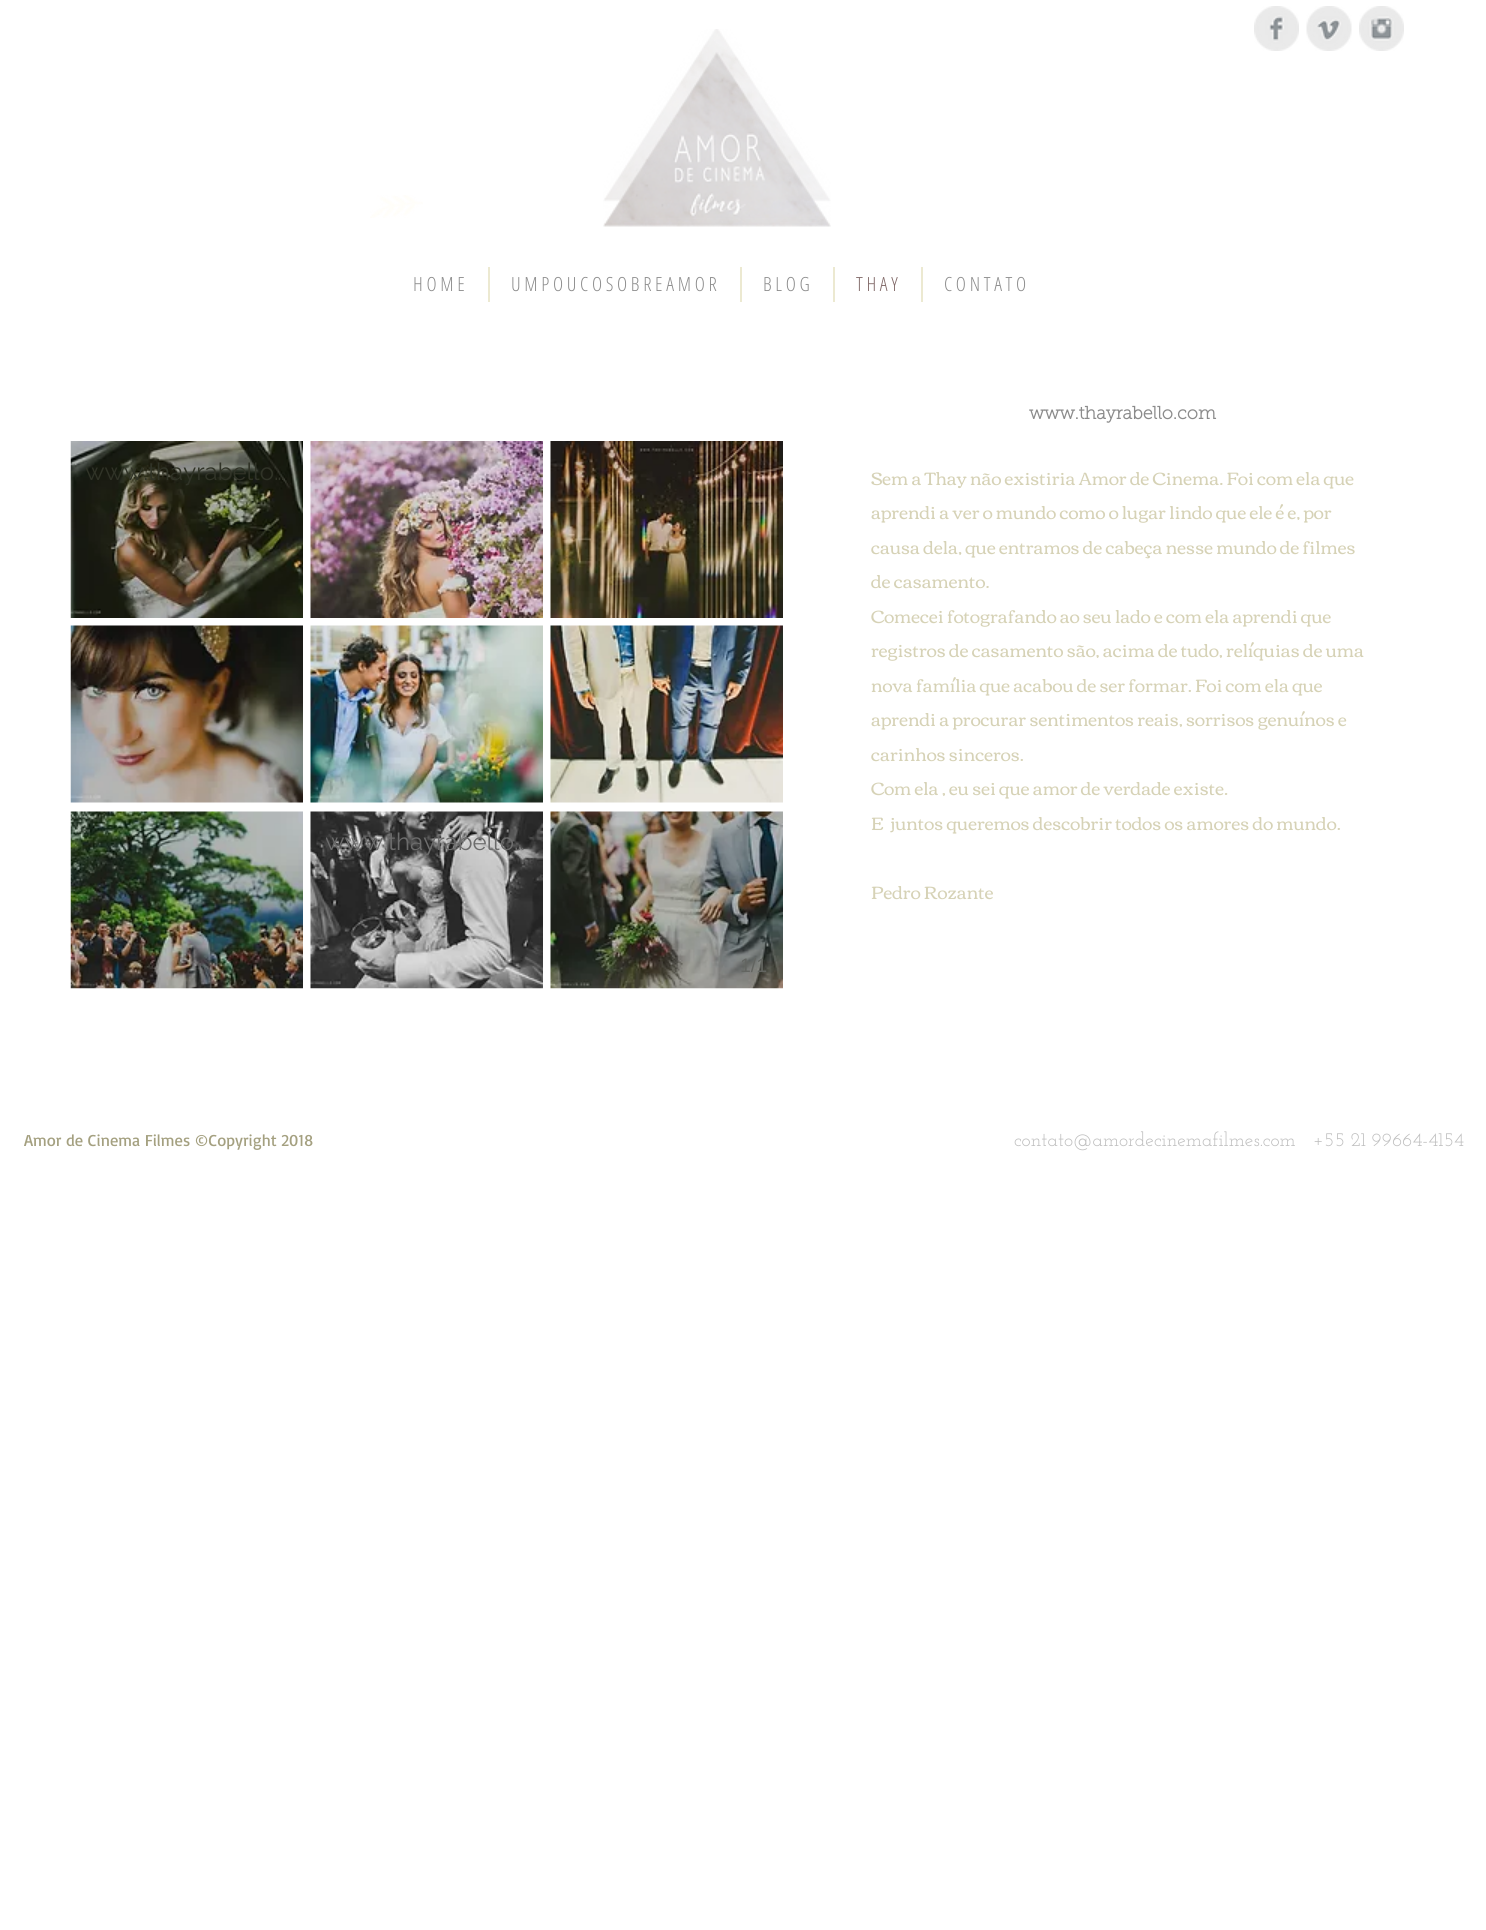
#include <cairo.h>
#include <math.h>
#include <stddef.h>


static void rgb(cairo_t *cr, int r, int g, int b)
{
	cairo_set_source_rgb(cr, r / 255.0, g / 255.0, b / 255.0);
}

static void face(cairo_t *cr, const char *family, double size, int italic, int bold)
{
	cairo_select_font_face(cr, family, italic ? CAIRO_FONT_SLANT_ITALIC : CAIRO_FONT_SLANT_NORMAL,
		bold ? CAIRO_FONT_WEIGHT_BOLD : CAIRO_FONT_WEIGHT_NORMAL);
	cairo_set_font_size(cr, size);
}

static void label(cairo_t *cr, double x, double y, const char *s)
{
	cairo_move_to(cr, x, y);
	cairo_show_text(cr, s);
}

static void rect(cairo_t *cr, double x, double y, double w, double h)
{
	cairo_rectangle(cr, x, y, w, h);
	cairo_fill(cr);
}

static void image(cairo_t *cr, const char *path, double x, double y, double w, double h)
{
	cairo_surface_t *image = cairo_image_surface_create_from_png(path);
	cairo_save(cr);
	cairo_set_source_surface(cr, image, x, y);
	cairo_rectangle(cr, x, y, w, h);
	cairo_fill(cr);
	cairo_restore(cr);
	cairo_surface_destroy(image);
}

static void draw(cairo_t *cr) {
	rgb(cr, 255, 255, 255);
	cairo_paint(cr);
	image(cr, "image0.png", 370, 195, 53, 23);
	image(cr, "image1.png", 603, 29, 228, 198);
	image(cr, "image2.png", 1254, 6, 45, 45);
	image(cr, "image3.png", 1306, 6, 46, 45);
	image(cr, "image4.png", 1359, 6, 45, 45);
	face(cr, "Open Sans Condensed Light", 19.5, 0, 0);
	rgb(cr, 139, 139, 139);
	label(cr, 413, 291, "H O M E");
	rgb(cr, 236, 233, 209);
	rect(cr, 488, 267, 2, 35);
	rgb(cr, 139, 139, 139);
	label(cr, 511, 291, "U M P O U C O S O B R E A M O R");
	rgb(cr, 236, 233, 209);
	rect(cr, 740, 267, 2, 35);
	rgb(cr, 139, 139, 139);
	label(cr, 763, 291, "B L O G");
	rgb(cr, 236, 233, 209);
	rect(cr, 833, 267, 2, 35);
	rgb(cr, 128, 104, 103);
	label(cr, 856, 291, "T H A Y");
	rgb(cr, 236, 233, 209);
	rect(cr, 921, 267, 2, 35);
	rgb(cr, 139, 139, 139);
	label(cr, 944, 291, "C O N T A T O");
	image(cr, "image5.png", 70, 441, 233, 177);
	cairo_save(cr);
	cairo_rectangle(cr, 86, 456, 202, 33);
	cairo_clip(cr);
	face(cr, "Raleway", 24, 0, 0);
	rgb(cr, 48, 51, 39);
	label(cr, 85, 480, "www.thayrabello…");
	cairo_restore(cr);
	image(cr, "image6.png", 310, 441, 233, 177);
	image(cr, "image7.png", 550, 441, 233, 177);
	image(cr, "image8.png", 70, 625, 233, 178);
	image(cr, "image9.png", 310, 625, 233, 178);
	image(cr, "image10.png", 550, 625, 233, 178);
	image(cr, "image11.png", 70, 811, 233, 178);
	image(cr, "image12.png", 310, 811, 233, 178);
	cairo_save(cr);
	cairo_rectangle(cr, 326, 827, 202, 33);
	cairo_clip(cr);
	face(cr, "Raleway", 24, 0, 0);
	rgb(cr, 108, 108, 108);
	label(cr, 325, 850, "www.thayrabello…");
	cairo_restore(cr);
	image(cr, "image13.png", 550, 811, 233, 178);
	face(cr, "Liberation Sans", 19.5, 0, 0);
	rgb(cr, 99, 101, 97);
	label(cr, 740, 972, "1/1");
	face(cr, "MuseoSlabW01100", 18, 0, 1);
	rgb(cr, 139, 139, 139);
	label(cr, 1029, 419, "www.thayrabello.com");
	face(cr, "Corben", 18, 0, 0);
	rgb(cr, 214, 210, 182);
	label(cr, 871, 485, "Sem a Thay não existiria Amor de Cinema. Foi com ela que");
	label(cr, 871, 519, "aprendi a ver o mundo como o lugar lindo que ele é e, por");
	label(cr, 871, 554, "causa dela, que entramos de cabeça nesse mundo de filmes");
	label(cr, 871, 588, "de casamento.");
	label(cr, 871, 623, "Comecei fotografando ao seu lado e com ela aprendi que");
	label(cr, 871, 657, "registros de casamento são, acima de tudo, relíquias de uma");
	label(cr, 871, 692, "nova família que acabou de ser formar. Foi com ela que");
	label(cr, 871, 726, "aprendi a procurar sentimentos reais, sorrisos genuínos e");
	label(cr, 871, 761, "carinhos sinceros.");
	label(cr, 871, 795, "Com ela , eu sei que amor de verdade existe.");
	label(cr, 871, 830, "E  juntos queremos descobrir todos os amores do mundo.");
	label(cr, 871, 899, "Pedro Rozante");
	face(cr, "Basic", 16.5, 0, 0);
	rgb(cr, 164, 160, 128);
	label(cr, 24, 1146, "Amor de Cinema Filmes ©Copyright 2018");
	face(cr, "Josefin Slab", 19.5, 0, 0);
	rgb(cr, 190, 190, 190);
	label(cr, 1014, 1146, "contato@amordecinemafilmes.com");
	label(cr, 1313, 1146, "+55 21 99664-4154");
}

int main(void) {
	cairo_surface_t *surface = cairo_image_surface_create(CAIRO_FORMAT_RGB24, 1486, 1930);
	cairo_t *cr = cairo_create(surface);
	cairo_font_options_t *options = cairo_font_options_create();
	cairo_font_options_set_hint_metrics(options, CAIRO_HINT_METRICS_OFF);
	cairo_font_options_set_hint_style(options, CAIRO_HINT_STYLE_NONE);
	cairo_set_font_options(cr, options);
	cairo_set_miter_limit(cr, 4);
	draw(cr);
	cairo_surface_write_to_png(surface, "render.png");
	cairo_font_options_destroy(options);
	cairo_destroy(cr);
	cairo_surface_destroy(surface);
	return 0;
}
